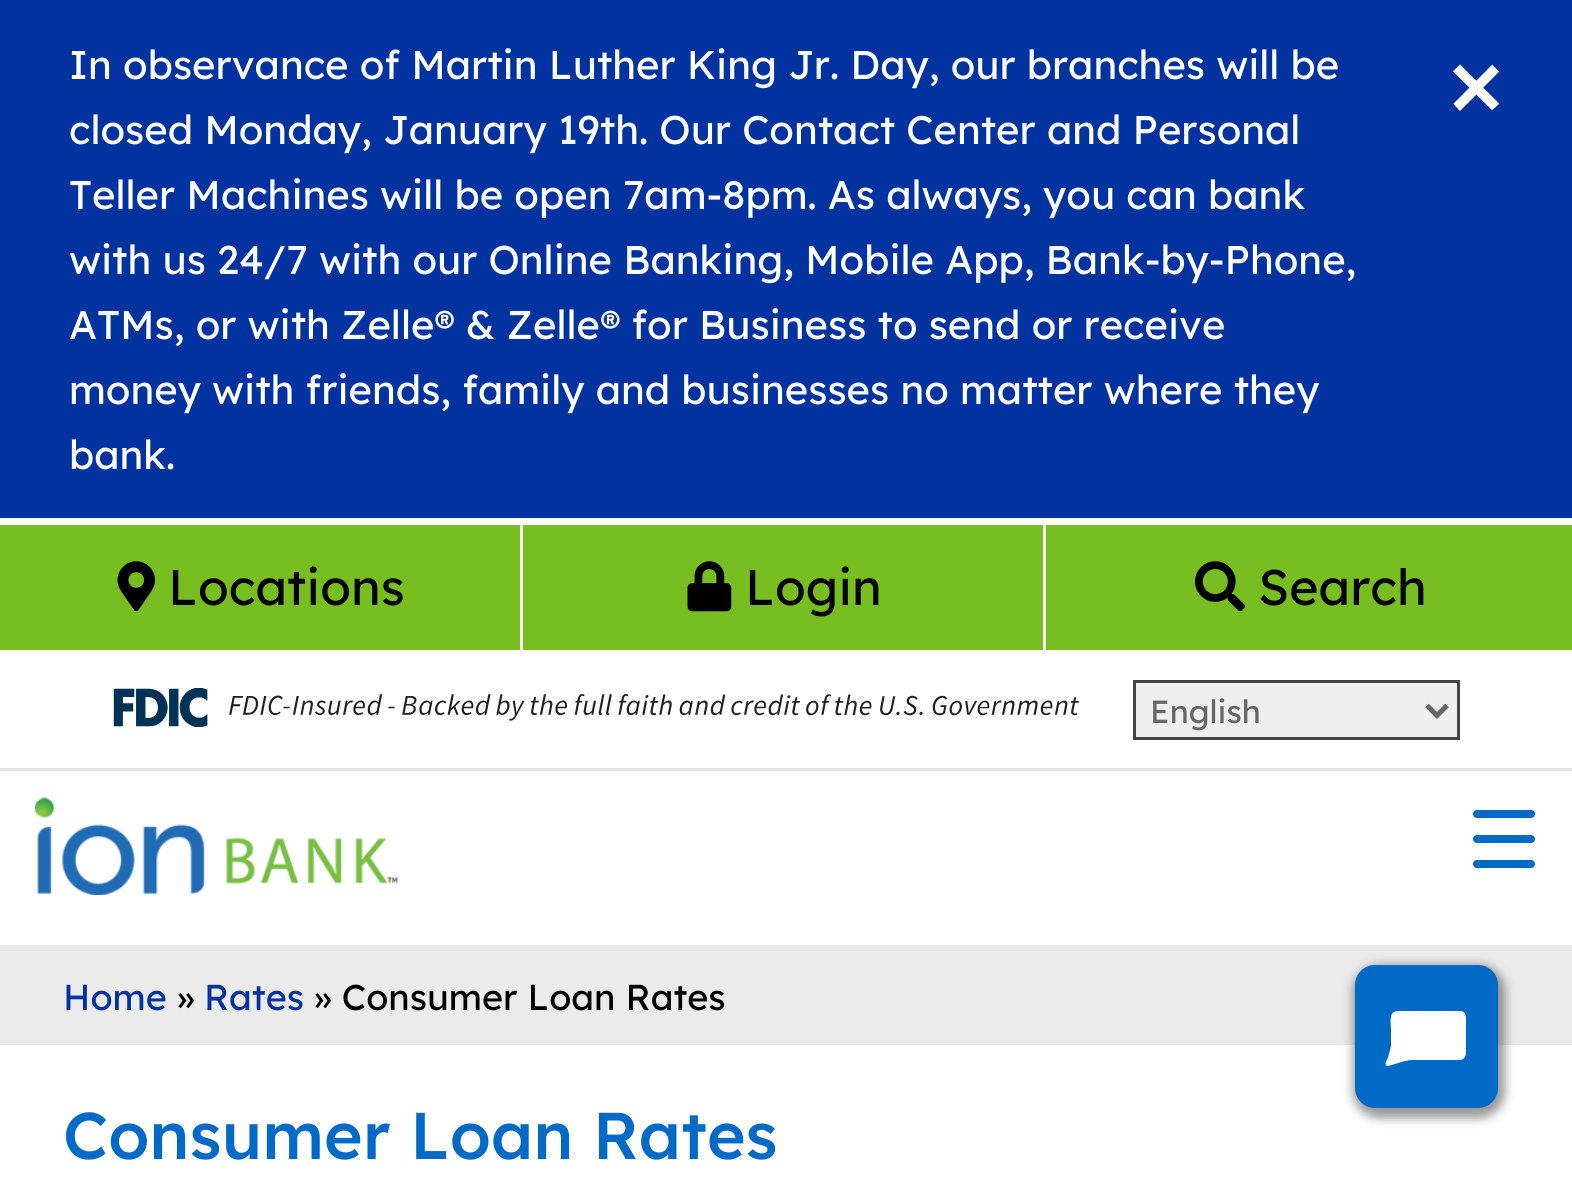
#include <cairo.h>
#include <math.h>
#include <stddef.h>


static void rgb(cairo_t *cr, int r, int g, int b)
{
	cairo_set_source_rgb(cr, r / 255.0, g / 255.0, b / 255.0);
}

static void face(cairo_t *cr, const char *family, double size, int italic, int bold)
{
	cairo_select_font_face(cr, family, italic ? CAIRO_FONT_SLANT_ITALIC : CAIRO_FONT_SLANT_NORMAL,
		bold ? CAIRO_FONT_WEIGHT_BOLD : CAIRO_FONT_WEIGHT_NORMAL);
	cairo_set_font_size(cr, size);
}

static void label(cairo_t *cr, double x, double y, const char *s)
{
	cairo_move_to(cr, x, y);
	cairo_show_text(cr, s);
}

static void rect(cairo_t *cr, double x, double y, double w, double h)
{
	cairo_rectangle(cr, x, y, w, h);
	cairo_fill(cr);
}

static void rrect(cairo_t *cr, double x, double y, double w, double h, double r)
{
	cairo_new_sub_path(cr);
	cairo_arc(cr, x + w - r, y + h - r, r, 0, M_PI / 2);
	cairo_arc(cr, x + r, y + h - r, r, M_PI / 2, M_PI);
	cairo_arc(cr, x + r, y + r, r, M_PI, 1.5 * M_PI);
	cairo_arc(cr, x + w - r, y + r, r, 1.5 * M_PI, 2 * M_PI);
	cairo_close_path(cr);
}

static void soft_shadow(cairo_t *cr, double x, double y, double w, double h, double r, double blur, double alpha)
{
	cairo_push_group_with_content(cr, CAIRO_CONTENT_ALPHA);
	cairo_set_operator(cr, CAIRO_OPERATOR_SOURCE);
	for (int i = 15; i >= -15 && fmin(w, h) + blur * i / 3 > 0; i -= 2) {
		double e = blur * i / 6;
		cairo_set_source_rgba(cr, 0, 0, 0, alpha * erfc((i - 1) / 8.5) / 2);
		rrect(cr, x - e, y - e, w + 2 * e, h + 2 * e, fmax(0, fmin(r + e + blur * .6, fmin(w, h) / 2 + e)));
		cairo_fill(cr);
	}
	cairo_pattern_t *soft = cairo_pop_group(cr);
	cairo_mask(cr, soft);
	cairo_pattern_destroy(soft);
}

static void image(cairo_t *cr, const char *path, double x, double y, double w, double h)
{
	cairo_surface_t *image = cairo_image_surface_create_from_png(path);
	cairo_save(cr);
	cairo_set_source_surface(cr, image, x, y);
	cairo_rectangle(cr, x, y, w, h);
	cairo_fill(cr);
	cairo_restore(cr);
	cairo_surface_destroy(image);
}

static void draw(cairo_t *cr) {
	rgb(cr, 255, 255, 255);
	cairo_paint(cr);
	rgb(cr, 0, 51, 160);
	rect(cr, 0, 0, 1572, 518);
	face(cr, "Lexend", 40, 0, 0);
	rgb(cr, 255, 255, 255);
	label(cr, 69, 79, "In observance of Martin Luther King Jr. Day, our branches will be");
	label(cr, 69, 144, "closed Monday, January 19th. Our Contact Center and Personal");
	label(cr, 69, 209, "Teller Machines will be open 7am-8pm. As always, you can bank");
	label(cr, 69, 274, "with us 24/7 with our Online Banking, Mobile App, Bank-by-Phone,");
	label(cr, 69, 339, "ATMs, or with Zelle® & Zelle® for Business to send or receive");
	label(cr, 69, 404, "money with friends, family and businesses no matter where they");
	label(cr, 69, 469, "bank.");
	face(cr, "Lexend", 112, 0, 0);
	label(cr, 1449, 119, "×");
	rgb(cr, 120, 190, 32);
	rect(cr, 0, 525, 1572, 125);
	rgb(cr, 255, 255, 255);
	rect(cr, 520, 525, 3, 125);
	image(cr, "image0.png", 117, 561, 38, 51);
	face(cr, "Lexend", 50, 0, 0);
	rgb(cr, 0, 0, 0);
	label(cr, 168, 605, "Locations");
	rgb(cr, 255, 255, 255);
	rect(cr, 1043, 525, 3, 125);
	image(cr, "image1.png", 687, 561, 45, 51);
	rgb(cr, 0, 0, 0);
	label(cr, 745, 605, "Login");
	image(cr, "image2.png", 1195, 561, 50, 51);
	label(cr, 1258, 605, "Search");
	image(cr, "image3.png", 113, 688, 966, 40);
	rgb(cr, 239, 239, 239);
	cairo_rectangle(cr, 1134.5, 681.5, 324, 57);
	cairo_fill_preserve(cr);
	rgb(cr, 68, 68, 68);
	cairo_set_line_width(cr, 3);
	cairo_stroke(cr);
	cairo_new_path(cr);
	cairo_move_to(cr, 1427, 705.5);
	cairo_line_to(cr, 1437, 715.5);
	cairo_line_to(cr, 1447, 705.5);
	rgb(cr, 102, 102, 102);
	cairo_set_line_width(cr, 5);
	cairo_stroke(cr);
	face(cr, "Lexend", 32, 0, 0);
	label(cr, 1150, 723, "English");
	rgb(cr, 228, 228, 228);
	rect(cr, 0, 768, 1572, 3);
	image(cr, "image4.png", 35, 797, 363, 98);
	rgb(cr, 0, 106, 198);
	rrect(cr, 1473, 835, 62, 8, 4);
	cairo_fill(cr);
	rrect(cr, 1473, 810, 62, 8, 4);
	cairo_fill(cr);
	rrect(cr, 1473, 860, 62, 8, 4);
	cairo_fill(cr);
	rgb(cr, 235, 235, 235);
	rect(cr, 0, 945, 1572, 100);
	face(cr, "Lexend", 36, 0, 0);
	rgb(cr, 0, 51, 160);
	label(cr, 63, 1010, "Home");
	rgb(cr, 0, 0, 0);
	label(cr, 177, 1010, "»");
	rgb(cr, 0, 51, 160);
	label(cr, 204, 1010, "Rates");
	rgb(cr, 0, 0, 0);
	label(cr, 314, 1010, "» Consumer Loan Rates");
	face(cr, "Lexend Medium", 66, 0, 0);
	rgb(cr, 0, 106, 198);
	label(cr, 63, 1159, "Consumer Loan Rates");
	rgb(cr, 0, 0, 0);
	soft_shadow(cr, 1353, 965, 152, 153, 25, 5, 0.4);
	rgb(cr, 0, 106, 198);
	rrect(cr, 1355, 965, 143, 143, 20);
	cairo_fill(cr);
	rgb(cr, 255, 255, 255);
	cairo_new_path(cr);
	cairo_move_to(cr, 1398, 1011);
	cairo_curve_to(cr, 1388, 1011, 1391, 1023, 1391, 1029);
	cairo_line_to(cr, 1391, 1046);
	cairo_line_to(cr, 1388, 1058);
	cairo_curve_to(cr, 1387, 1059, 1383, 1066, 1388, 1066);
	cairo_line_to(cr, 1395, 1064);
	cairo_curve_to(cr, 1401, 1062, 1407, 1060, 1413, 1060);
	cairo_line_to(cr, 1461, 1060);
	cairo_curve_to(cr, 1467, 1058, 1466, 1052, 1466, 1047);
	cairo_line_to(cr, 1466, 1023);
	cairo_curve_to(cr, 1466, 1019, 1467, 1012, 1461, 1011);
	cairo_close_path(cr);
	cairo_fill(cr);
}

int main(void) {
	cairo_surface_t *surface = cairo_image_surface_create(CAIRO_FORMAT_RGB24, 1572, 1182);
	cairo_t *cr = cairo_create(surface);
	cairo_font_options_t *options = cairo_font_options_create();
	cairo_font_options_set_hint_metrics(options, CAIRO_HINT_METRICS_OFF);
	cairo_font_options_set_hint_style(options, CAIRO_HINT_STYLE_NONE);
	cairo_set_font_options(cr, options);
	cairo_set_miter_limit(cr, 4);
	draw(cr);
	cairo_surface_write_to_png(surface, "render.png");
	cairo_font_options_destroy(options);
	cairo_destroy(cr);
	cairo_surface_destroy(surface);
	return 0;
}
